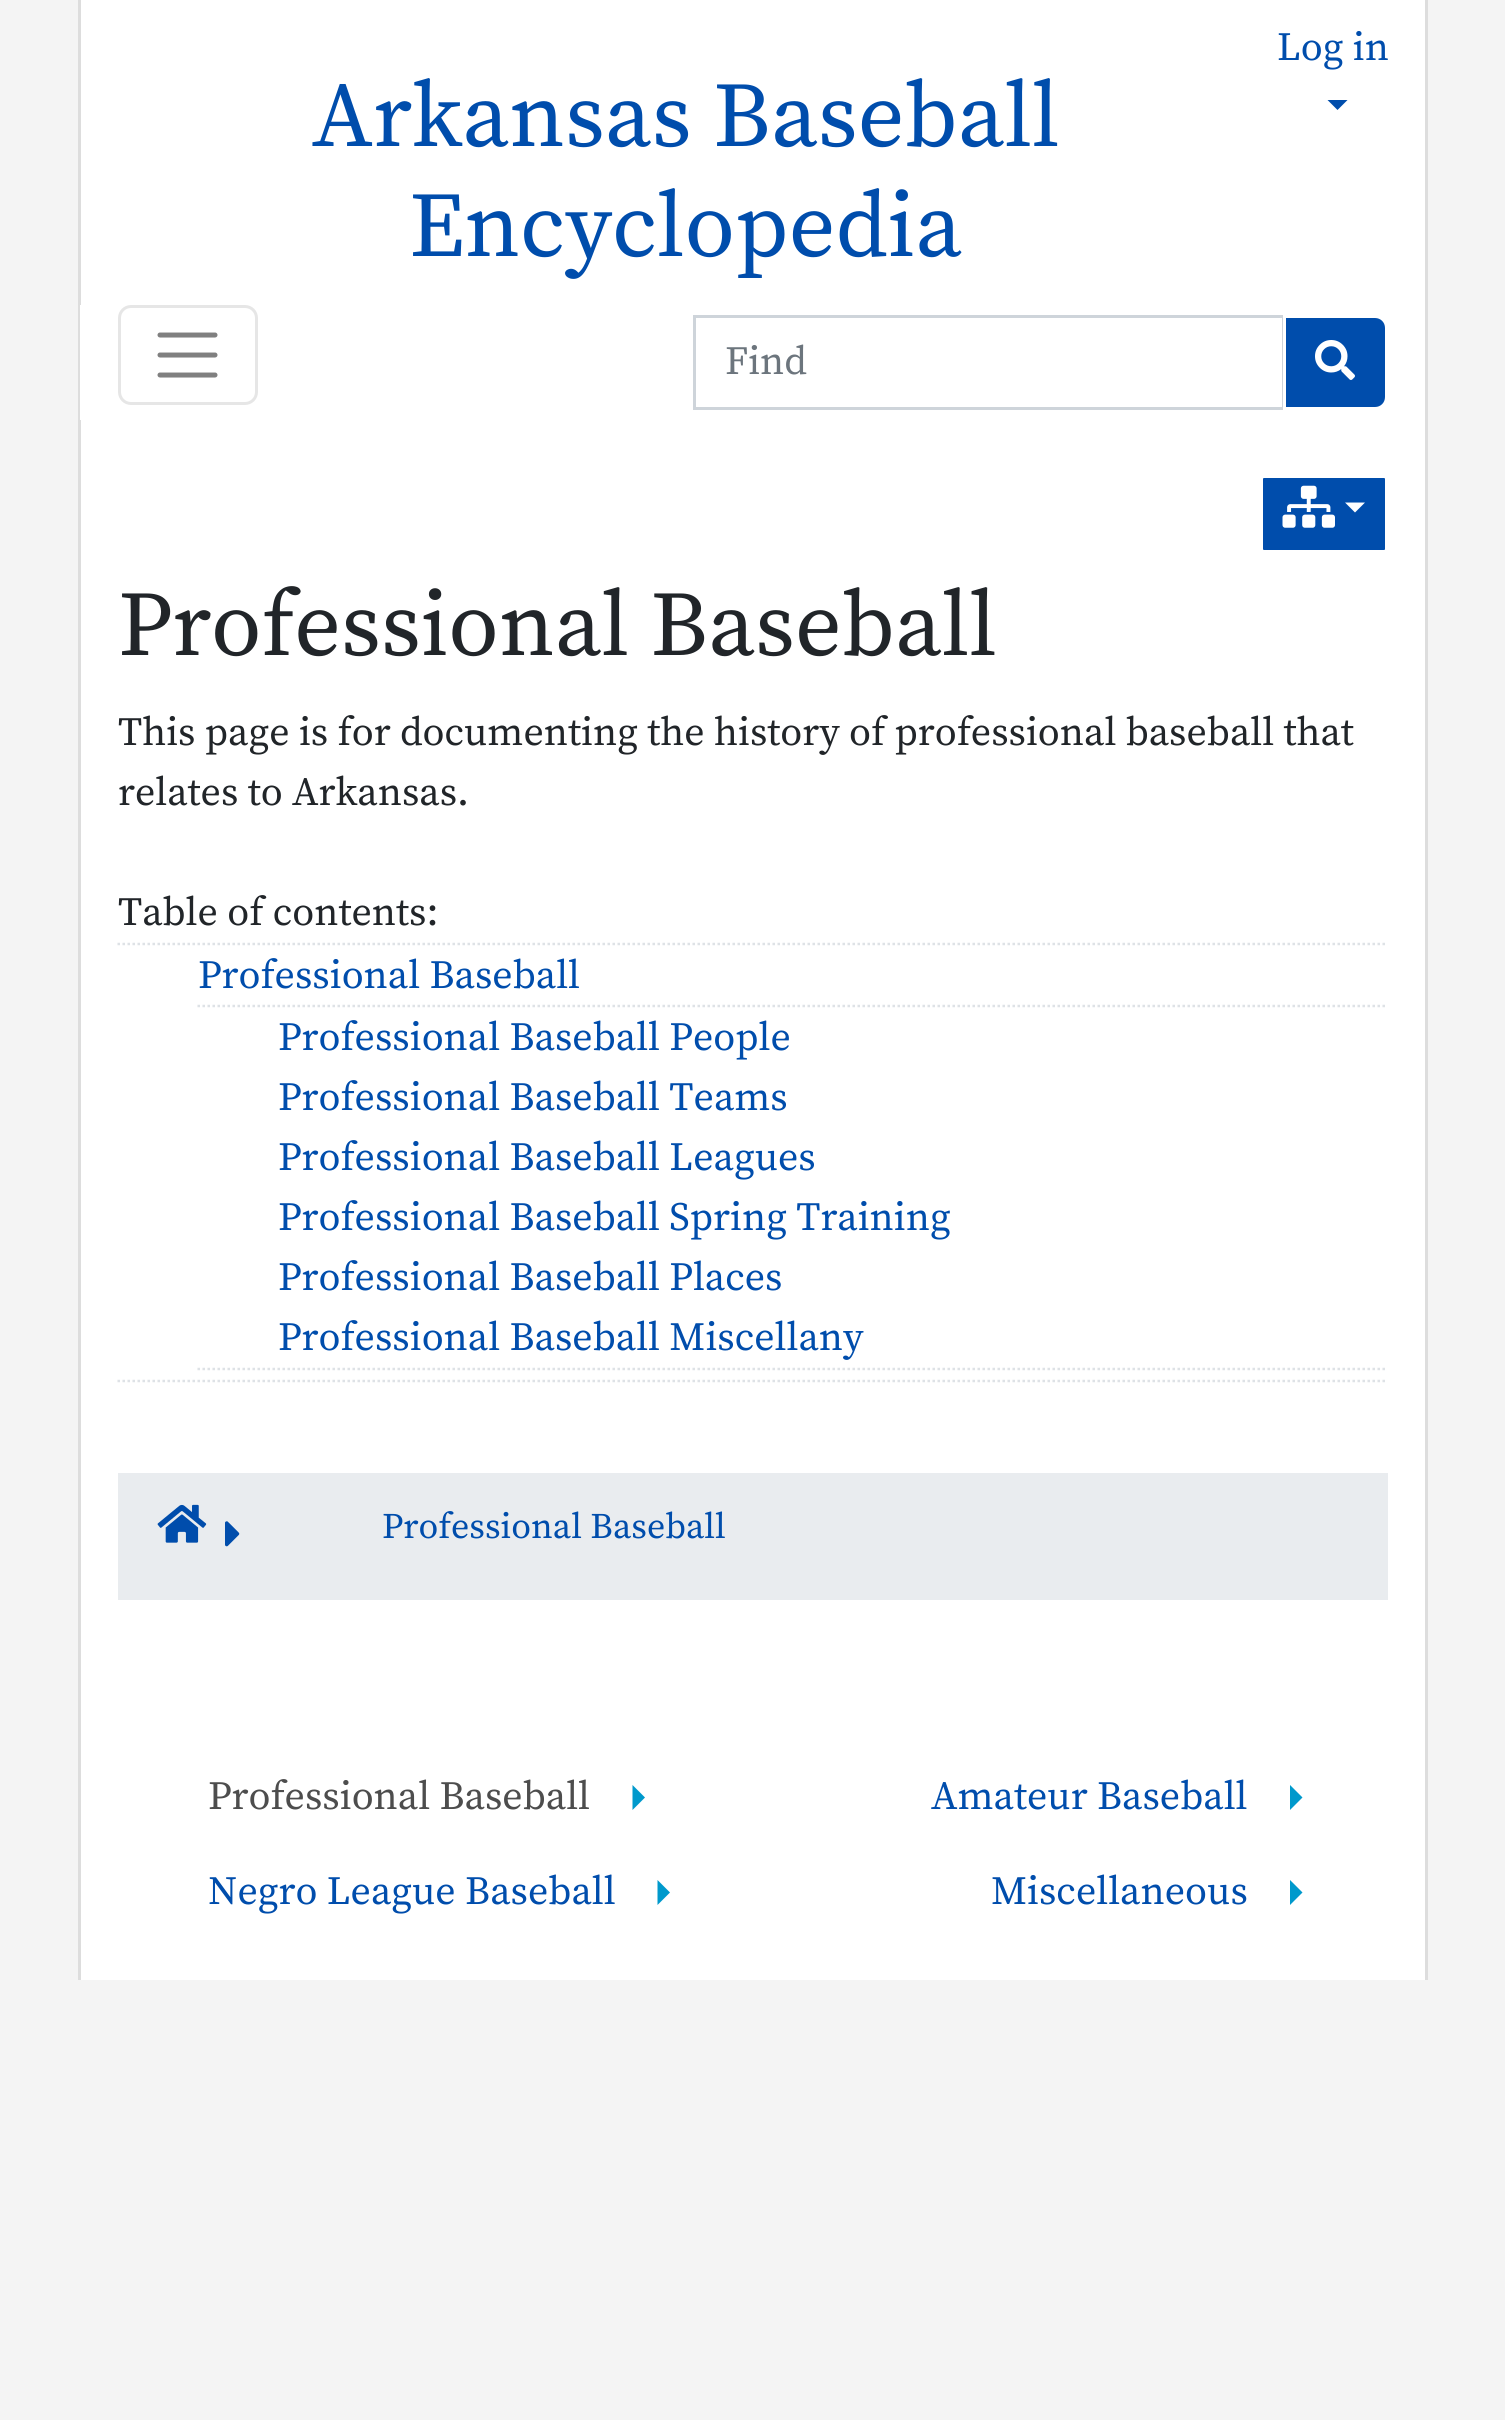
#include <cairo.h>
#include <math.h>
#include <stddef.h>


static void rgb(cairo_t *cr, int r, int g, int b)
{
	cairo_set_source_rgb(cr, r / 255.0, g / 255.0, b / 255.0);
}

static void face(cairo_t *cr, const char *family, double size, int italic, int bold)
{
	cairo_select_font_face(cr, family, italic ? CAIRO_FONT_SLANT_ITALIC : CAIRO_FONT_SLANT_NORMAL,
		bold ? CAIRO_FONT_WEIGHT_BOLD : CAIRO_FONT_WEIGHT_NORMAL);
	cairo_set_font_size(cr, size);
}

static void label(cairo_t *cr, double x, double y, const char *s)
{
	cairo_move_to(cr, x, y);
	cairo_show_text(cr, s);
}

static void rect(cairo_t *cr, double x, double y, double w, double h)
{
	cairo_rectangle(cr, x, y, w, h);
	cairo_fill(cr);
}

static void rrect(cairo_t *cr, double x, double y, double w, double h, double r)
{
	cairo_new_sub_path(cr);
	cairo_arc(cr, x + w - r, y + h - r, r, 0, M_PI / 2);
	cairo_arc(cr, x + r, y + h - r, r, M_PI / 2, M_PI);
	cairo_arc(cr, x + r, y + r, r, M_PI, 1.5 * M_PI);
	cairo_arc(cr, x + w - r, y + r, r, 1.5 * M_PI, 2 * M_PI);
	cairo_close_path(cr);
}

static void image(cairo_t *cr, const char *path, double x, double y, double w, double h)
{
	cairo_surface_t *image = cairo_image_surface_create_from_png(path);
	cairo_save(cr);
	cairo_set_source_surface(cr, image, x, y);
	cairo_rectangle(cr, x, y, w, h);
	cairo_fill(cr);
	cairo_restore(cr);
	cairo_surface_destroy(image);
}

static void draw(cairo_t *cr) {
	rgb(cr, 244, 244, 244);
	cairo_paint(cr);
	rgb(cr, 255, 255, 255);
	rect(cr, 81, 0, 1344, 1980);
	rgb(cr, 221, 221, 221);
	rect(cr, 1425, 0, 3, 1980);
	rect(cr, 78, 0, 3, 1980);
	face(cr, "Source Serif Pro", 40, 0, 0);
	rgb(cr, 0, 77, 172);
	label(cr, 1277, 60, "Log in");
	cairo_new_path(cr);
	cairo_move_to(cr, 1327.5, 100);
	cairo_line_to(cr, 1347.5, 100);
	cairo_line_to(cr, 1337.5, 110);
	cairo_close_path(cr);
	cairo_fill(cr);
	face(cr, "Source Serif Pro", 92, 0, 0);
	label(cr, 312, 146, "Arkansas Baseball");
	label(cr, 409, 256, "Encyclopedia");
	rgb(cr, 255, 255, 255);
	rect(cr, 80, 305, 1, 115);
	rrect(cr, 119.5, 306.5, 137, 97, 11.5);
	rgb(cr, 230, 230, 230);
	cairo_set_line_width(cr, 3);
	cairo_stroke(cr);
	cairo_new_path(cr);
	cairo_move_to(cr, 160, 335);
	cairo_line_to(cr, 215, 335);
	cairo_move_to(cr, 160, 355);
	cairo_line_to(cr, 215, 355);
	cairo_move_to(cr, 160, 375);
	cairo_line_to(cr, 215, 375);
	rgb(cr, 128, 128, 128);
	cairo_set_line_width(cr, 5);
	cairo_set_line_cap(cr, CAIRO_LINE_CAP_ROUND);
	cairo_stroke(cr);
	cairo_rectangle(cr, 694.5, 316.5, 589, 92);
	rgb(cr, 206, 212, 218);
	cairo_set_line_width(cr, 3);
	cairo_set_line_cap(cr, CAIRO_LINE_CAP_BUTT);
	cairo_stroke(cr);
	face(cr, "Source Serif Pro", 40, 0, 0);
	rgb(cr, 108, 117, 125);
	label(cr, 725, 374, "Find");
	rgb(cr, 0, 77, 172);
	cairo_new_path(cr);
	cairo_move_to(cr, 1284.5, 316.5);
	cairo_line_to(cr, 1375, 316.5);
	cairo_curve_to(cr, 1381.5, 316.5, 1386.5, 321.5, 1386.5, 328);
	cairo_line_to(cr, 1386.5, 397);
	cairo_curve_to(cr, 1386.5, 403.5, 1381.5, 408.5, 1375, 408.5);
	cairo_line_to(cr, 1284.5, 408.5);
	cairo_close_path(cr);
	cairo_fill_preserve(cr);
	rgb(cr, 255, 255, 255);
	cairo_stroke(cr);
	image(cr, "image0.png", 1315, 340, 40, 40);
	rgb(cr, 0, 77, 172);
	rrect(cr, 1261.5, 476.5, 125, 75, 2.5);
	cairo_fill_preserve(cr);
	rgb(cr, 255, 255, 255);
	cairo_stroke(cr);
	image(cr, "image1.png", 1282, 485, 53, 43);
	cairo_new_path(cr);
	cairo_move_to(cr, 1345, 502.5);
	cairo_line_to(cr, 1365, 502.5);
	cairo_line_to(cr, 1355, 512.5);
	cairo_close_path(cr);
	cairo_fill(cr);
	face(cr, "Source Serif Pro", 92, 0, 0);
	rgb(cr, 33, 37, 41);
	label(cr, 118, 655, "Professional Baseball");
	face(cr, "Source Serif Pro", 40, 0, 0);
	label(cr, 118, 745, "This page is for documenting the history of professional baseball that");
	label(cr, 118, 805, "relates to Arkansas.");
	label(cr, 118, 925, "Table of contents:");
	cairo_new_path(cr);
	cairo_move_to(cr, 117.5, 944);
	cairo_line_to(cr, 1387.5, 944);
	rgb(cr, 222, 226, 230);
	cairo_set_line_width(cr, 2.5);
	cairo_set_dash(cr, (double[]){2.5, 2.5}, 2, 0);
	cairo_stroke(cr);
	cairo_new_path(cr);
	cairo_move_to(cr, 117.5, 1381);
	cairo_line_to(cr, 1387.5, 1381);
	cairo_stroke(cr);
	rgb(cr, 0, 77, 172);
	label(cr, 198, 988, "Professional Baseball");
	cairo_new_path(cr);
	cairo_move_to(cr, 197.5, 1006);
	cairo_line_to(cr, 1387.5, 1006);
	rgb(cr, 222, 226, 230);
	cairo_stroke(cr);
	cairo_new_path(cr);
	cairo_move_to(cr, 197.5, 1369);
	cairo_line_to(cr, 1387.5, 1369);
	cairo_stroke(cr);
	rgb(cr, 0, 77, 172);
	label(cr, 278, 1050, "Professional Baseball People");
	label(cr, 278, 1110, "Professional Baseball Teams");
	label(cr, 278, 1170, "Professional Baseball Leagues");
	label(cr, 278, 1230, "Professional Baseball Spring Training");
	label(cr, 278, 1290, "Professional Baseball Places");
	label(cr, 278, 1350, "Professional Baseball Miscellany");
	rgb(cr, 233, 236, 239);
	rect(cr, 118, 1473, 1270, 127);
	image(cr, "image2.png", 157, 1504, 50, 39);
	image(cr, "image3.png", 225, 1521, 15, 26);
	face(cr, "Source Serif Pro", 36, 0, 0);
	rgb(cr, 0, 77, 172);
	label(cr, 382, 1538, "Professional Baseball");
	face(cr, "Source Serif Pro", 40, 0, 0);
	rgb(cr, 77, 77, 77);
	label(cr, 208, 1809, "Professional Baseball");
	rgb(cr, 0, 153, 204);
	cairo_new_path(cr);
	cairo_move_to(cr, 632.5, 1810);
	cairo_line_to(cr, 632.5, 1785);
	cairo_line_to(cr, 645, 1797.5);
	cairo_close_path(cr);
	cairo_fill(cr);
	rgb(cr, 0, 77, 172);
	label(cr, 931, 1809, "Amateur Baseball");
	rgb(cr, 0, 153, 204);
	cairo_new_path(cr);
	cairo_move_to(cr, 1290, 1810);
	cairo_line_to(cr, 1290, 1785);
	cairo_line_to(cr, 1302.5, 1797.5);
	cairo_close_path(cr);
	cairo_fill(cr);
	rgb(cr, 0, 77, 172);
	label(cr, 208, 1904, "Negro League Baseball");
	rgb(cr, 0, 153, 204);
	cairo_new_path(cr);
	cairo_move_to(cr, 657.5, 1905);
	cairo_line_to(cr, 657.5, 1880);
	cairo_line_to(cr, 670, 1892.5);
	cairo_close_path(cr);
	cairo_fill(cr);
	rgb(cr, 0, 77, 172);
	label(cr, 991, 1904, "Miscellaneous");
	rgb(cr, 0, 153, 204);
	cairo_new_path(cr);
	cairo_move_to(cr, 1290, 1905);
	cairo_line_to(cr, 1290, 1880);
	cairo_line_to(cr, 1302.5, 1892.5);
	cairo_close_path(cr);
	cairo_fill(cr);
}

int main(void) {
	cairo_surface_t *surface = cairo_image_surface_create(CAIRO_FORMAT_RGB24, 1505, 2420);
	cairo_t *cr = cairo_create(surface);
	cairo_font_options_t *options = cairo_font_options_create();
	cairo_font_options_set_hint_metrics(options, CAIRO_HINT_METRICS_OFF);
	cairo_font_options_set_hint_style(options, CAIRO_HINT_STYLE_NONE);
	cairo_set_font_options(cr, options);
	cairo_set_miter_limit(cr, 4);
	draw(cr);
	cairo_surface_write_to_png(surface, "render.png");
	cairo_font_options_destroy(options);
	cairo_destroy(cr);
	cairo_surface_destroy(surface);
	return 0;
}
